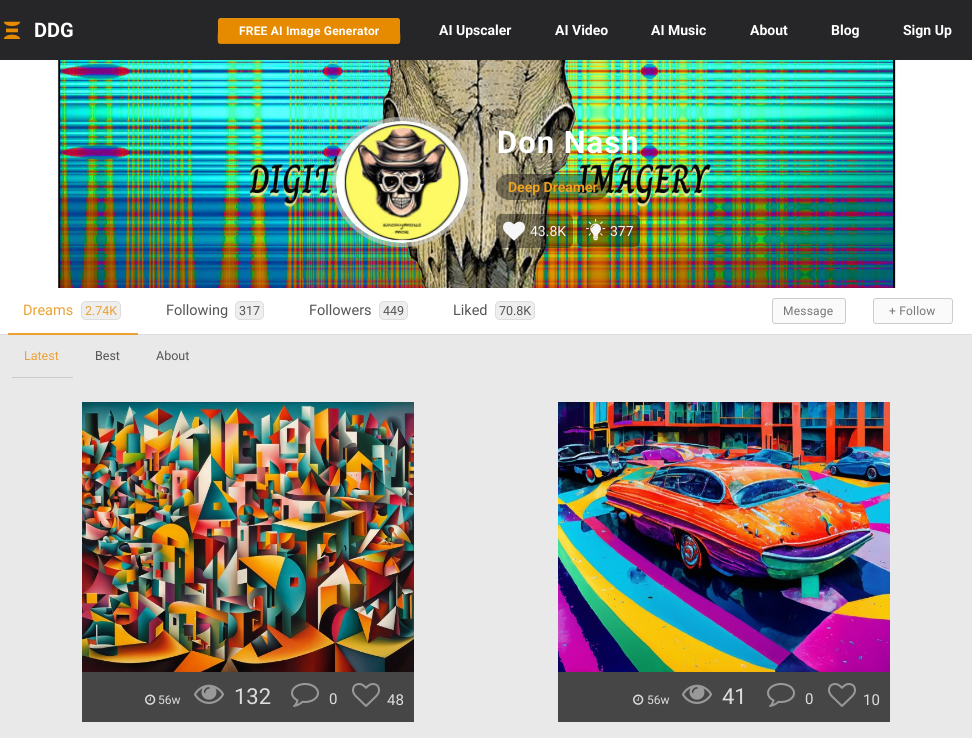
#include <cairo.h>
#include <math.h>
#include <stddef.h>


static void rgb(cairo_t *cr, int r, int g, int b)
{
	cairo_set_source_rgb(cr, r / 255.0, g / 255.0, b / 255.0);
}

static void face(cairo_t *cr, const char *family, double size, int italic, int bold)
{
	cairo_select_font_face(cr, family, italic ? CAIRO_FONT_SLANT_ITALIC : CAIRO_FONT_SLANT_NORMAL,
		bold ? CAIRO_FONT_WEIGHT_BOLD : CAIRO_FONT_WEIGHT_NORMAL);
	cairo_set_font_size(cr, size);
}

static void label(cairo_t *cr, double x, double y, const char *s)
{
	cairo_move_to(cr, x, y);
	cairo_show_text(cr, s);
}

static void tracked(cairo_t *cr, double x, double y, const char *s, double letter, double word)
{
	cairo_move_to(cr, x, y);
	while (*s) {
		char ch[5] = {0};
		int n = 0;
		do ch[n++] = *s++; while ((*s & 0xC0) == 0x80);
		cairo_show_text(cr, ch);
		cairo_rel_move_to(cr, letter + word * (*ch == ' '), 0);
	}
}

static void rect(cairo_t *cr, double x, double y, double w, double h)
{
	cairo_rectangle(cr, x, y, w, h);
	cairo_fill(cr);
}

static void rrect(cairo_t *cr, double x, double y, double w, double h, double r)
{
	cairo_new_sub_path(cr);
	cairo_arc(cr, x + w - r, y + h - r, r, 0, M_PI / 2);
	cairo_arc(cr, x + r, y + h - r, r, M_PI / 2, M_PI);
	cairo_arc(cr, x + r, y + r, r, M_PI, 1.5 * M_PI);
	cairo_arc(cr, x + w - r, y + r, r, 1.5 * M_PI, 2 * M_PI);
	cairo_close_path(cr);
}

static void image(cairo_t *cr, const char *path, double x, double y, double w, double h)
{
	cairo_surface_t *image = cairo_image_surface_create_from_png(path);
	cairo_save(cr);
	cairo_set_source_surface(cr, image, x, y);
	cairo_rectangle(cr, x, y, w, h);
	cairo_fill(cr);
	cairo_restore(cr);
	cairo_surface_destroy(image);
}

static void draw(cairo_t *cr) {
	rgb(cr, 233, 233, 233);
	cairo_paint(cr);
	rgb(cr, 38, 38, 40);
	rect(cr, 0, 0, 972, 60);
	image(cr, "image0.png", 3, 21, 18, 18);
	face(cr, "Roboto", 20, 0, 1);
	rgb(cr, 255, 255, 255);
	label(cr, 34, 37, "DDG");
	rgb(cr, 230, 138, 0);
	rrect(cr, 218, 18, 182, 26, 3);
	cairo_fill(cr);
	cairo_new_path(cr);
	cairo_move_to(cr, 399, 43);
	cairo_line_to(cr, 397, 43.5);
	cairo_line_to(cr, 221, 43.5);
	cairo_line_to(cr, 219, 43);
	rgb(cr, 214, 132, 0);
	cairo_set_line_width(cr, 1);
	cairo_stroke(cr);
	cairo_new_path(cr);
	cairo_move_to(cr, 219, 43);
	cairo_curve_to(cr, 217.5, 41, 218.5, 33.5, 218.5, 31);
	cairo_line_to(cr, 218.5, 24.5);
	cairo_curve_to(cr, 218.5, 22.5, 218, 18.5, 221, 18.5);
	cairo_line_to(cr, 397, 18.5);
	cairo_curve_to(cr, 400, 18.5, 399.5, 22.5, 399.5, 24.5);
	cairo_line_to(cr, 399.5, 31);
	cairo_curve_to(cr, 399.5, 33.5, 400.5, 41, 399, 43);
	rgb(cr, 221, 142, 17);
	cairo_stroke(cr);
	face(cr, "Roboto", 12, 0, 1);
	rgb(cr, 255, 255, 255);
	tracked(cr, 239, 35, "FREE AI Image Generator", 0.2, 0);
	face(cr, "Roboto", 14, 0, 1);
	label(cr, 439, 35, "AI Upscaler");
	label(cr, 555, 35, "AI Video");
	label(cr, 651, 35, "AI Music");
	label(cr, 750, 35, "About");
	label(cr, 831, 35, "Blog");
	label(cr, 903, 35, "Sign Up");
	image(cr, "image1.png", 0, 60, 972, 228);
	cairo_new_path(cr);
	cairo_move_to(cr, 402, 119);
	cairo_curve_to(cr, 439.5, 119, 470, 147, 470, 182);
	cairo_curve_to(cr, 470, 217, 439.5, 245, 402, 245);
	cairo_curve_to(cr, 364.5, 245, 334, 217, 334, 182);
	cairo_curve_to(cr, 334, 147, 364.5, 119, 402, 119);
	cairo_close_path(cr);
	cairo_set_source_rgba(cr, 0.8, 0.8, 0.8, 0.6);
	cairo_set_line_width(cr, 4);
	cairo_stroke(cr);
	image(cr, "image2.png", 336, 121, 132, 122);
	face(cr, "Roboto", 31, 0, 1);
	rgb(cr, 255, 255, 255);
	tracked(cr, 497, 153, "Don Nash", 1, 0);
	cairo_set_source_rgba(cr, 0, 0, 0, 0.4);
	rrect(cr, 496, 174, 113, 26, 13);
	cairo_fill(cr);
	face(cr, "Roboto", 14, 0, 1);
	rgb(cr, 235, 161, 35);
	label(cr, 508, 192, "Deep Dreamer");
	cairo_set_source_rgba(cr, 0, 0, 0, 0.4);
	rrect(cr, 496, 214, 77, 34, 6);
	cairo_fill(cr);
	image(cr, "image3.png", 503, 221, 22, 20);
	face(cr, "Roboto", 14, 0, 0);
	rgb(cr, 246, 246, 246);
	label(cr, 530, 236, "43.8K");
	cairo_set_source_rgba(cr, 0, 0, 0, 0.4);
	rrect(cr, 577, 215, 63, 32, 6);
	cairo_fill(cr);
	image(cr, "image4.png", 586, 218, 20, 23);
	rgb(cr, 246, 246, 246);
	label(cr, 610, 236, "377");
	rgb(cr, 255, 255, 255);
	rect(cr, 0, 288, 972, 46);
	rgb(cr, 220, 220, 220);
	rect(cr, 0, 334, 972, 1);
	rgb(cr, 235, 161, 51);
	rect(cr, 8, 333, 130, 2);
	face(cr, "Roboto", 14.5, 0, 0);
	label(cr, 23, 315, "Dreams");
	rgb(cr, 238, 238, 238);
	rrect(cr, 81.5, 301.5, 39, 18, 4.5);
	cairo_fill_preserve(cr);
	rgb(cr, 221, 221, 221);
	cairo_set_line_width(cr, 1);
	cairo_stroke(cr);
	face(cr, "Roboto", 12.5, 0, 0);
	rgb(cr, 235, 161, 51);
	label(cr, 85, 315, "2.74K");
	face(cr, "Roboto", 14.5, 0, 0);
	rgb(cr, 85, 85, 85);
	label(cr, 166, 315, "Following");
	rgb(cr, 238, 238, 238);
	rrect(cr, 235.5, 301.5, 28, 18, 4.5);
	cairo_fill_preserve(cr);
	rgb(cr, 221, 221, 221);
	cairo_stroke(cr);
	face(cr, "Roboto", 12.5, 0, 0);
	rgb(cr, 85, 85, 85);
	label(cr, 239, 315, "317");
	face(cr, "Roboto", 14.5, 0, 0);
	label(cr, 309, 315, "Followers");
	rgb(cr, 238, 238, 238);
	rrect(cr, 379.5, 301.5, 28, 18, 4.5);
	cairo_fill_preserve(cr);
	rgb(cr, 221, 221, 221);
	cairo_stroke(cr);
	face(cr, "Roboto", 12.5, 0, 0);
	rgb(cr, 85, 85, 85);
	label(cr, 383, 315, "449");
	face(cr, "Roboto", 14.5, 0, 0);
	label(cr, 453, 315, "Liked");
	rgb(cr, 238, 238, 238);
	rrect(cr, 495.5, 301.5, 39, 18, 4.5);
	cairo_fill_preserve(cr);
	rgb(cr, 221, 221, 221);
	cairo_stroke(cr);
	face(cr, "Roboto", 12.5, 0, 0);
	rgb(cr, 85, 85, 85);
	label(cr, 499, 315, "70.8K");
	rgb(cr, 250, 250, 250);
	rrect(cr, 772.5, 298.5, 73, 25, 2.5);
	cairo_fill_preserve(cr);
	rgb(cr, 204, 204, 204);
	cairo_stroke(cr);
	face(cr, "Roboto", 12, 0, 0);
	rgb(cr, 119, 119, 119);
	tracked(cr, 783, 315, "Message", 0.2, 0);
	rgb(cr, 250, 250, 250);
	rrect(cr, 873.5, 298.5, 79, 25, 2.5);
	cairo_fill_preserve(cr);
	rgb(cr, 204, 204, 204);
	cairo_stroke(cr);
	rgb(cr, 119, 119, 119);
	tracked(cr, 889, 315, "+ Follow", 0.2, 0);
	rgb(cr, 204, 204, 204);
	rect(cr, 12, 377, 61, 1);
	face(cr, "Roboto", 12.5, 0, 0);
	rgb(cr, 235, 161, 51);
	label(cr, 24, 360, "Latest");
	rgb(cr, 85, 85, 85);
	label(cr, 95, 360, "Best");
	label(cr, 156, 360, "About");
	image(cr, "image5.png", 82, 402, 332, 270);
	rgb(cr, 70, 70, 70);
	rect(cr, 82, 672, 332, 50);
	image(cr, "image6.png", 145, 694, 11, 11);
	face(cr, "Roboto", 12, 0, 0);
	rgb(cr, 221, 221, 221);
	label(cr, 158, 704, "56w");
	image(cr, "image7.png", 194, 684, 30, 20);
	face(cr, "Roboto", 22, 0, 0);
	label(cr, 234, 704, "132");
	image(cr, "image8.png", 291, 683, 28, 24);
	face(cr, "Roboto", 15, 0, 0);
	label(cr, 329, 704, "0");
	image(cr, "image9.png", 352, 683, 28, 24);
	label(cr, 387, 705, "48");
	image(cr, "image10.png", 558, 402, 332, 270);
	rgb(cr, 70, 70, 70);
	rect(cr, 558, 672, 332, 50);
	image(cr, "image6.png", 633, 694, 11, 11);
	face(cr, "Roboto", 12, 0, 0);
	rgb(cr, 221, 221, 221);
	label(cr, 647, 704, "56w");
	image(cr, "image7.png", 682, 684, 30, 20);
	face(cr, "Roboto", 22, 0, 0);
	label(cr, 722, 704, "41");
	image(cr, "image8.png", 767, 683, 28, 24);
	face(cr, "Roboto", 15, 0, 0);
	label(cr, 805, 704, "0");
	image(cr, "image9.png", 828, 683, 28, 24);
	label(cr, 863, 705, "10");
}

int main(void) {
	cairo_surface_t *surface = cairo_image_surface_create(CAIRO_FORMAT_RGB24, 972, 738);
	cairo_t *cr = cairo_create(surface);
	cairo_font_options_t *options = cairo_font_options_create();
	cairo_font_options_set_hint_metrics(options, CAIRO_HINT_METRICS_OFF);
	cairo_font_options_set_hint_style(options, CAIRO_HINT_STYLE_NONE);
	cairo_set_font_options(cr, options);
	cairo_set_miter_limit(cr, 4);
	draw(cr);
	cairo_surface_write_to_png(surface, "render.png");
	cairo_font_options_destroy(options);
	cairo_destroy(cr);
	cairo_surface_destroy(surface);
	return 0;
}
